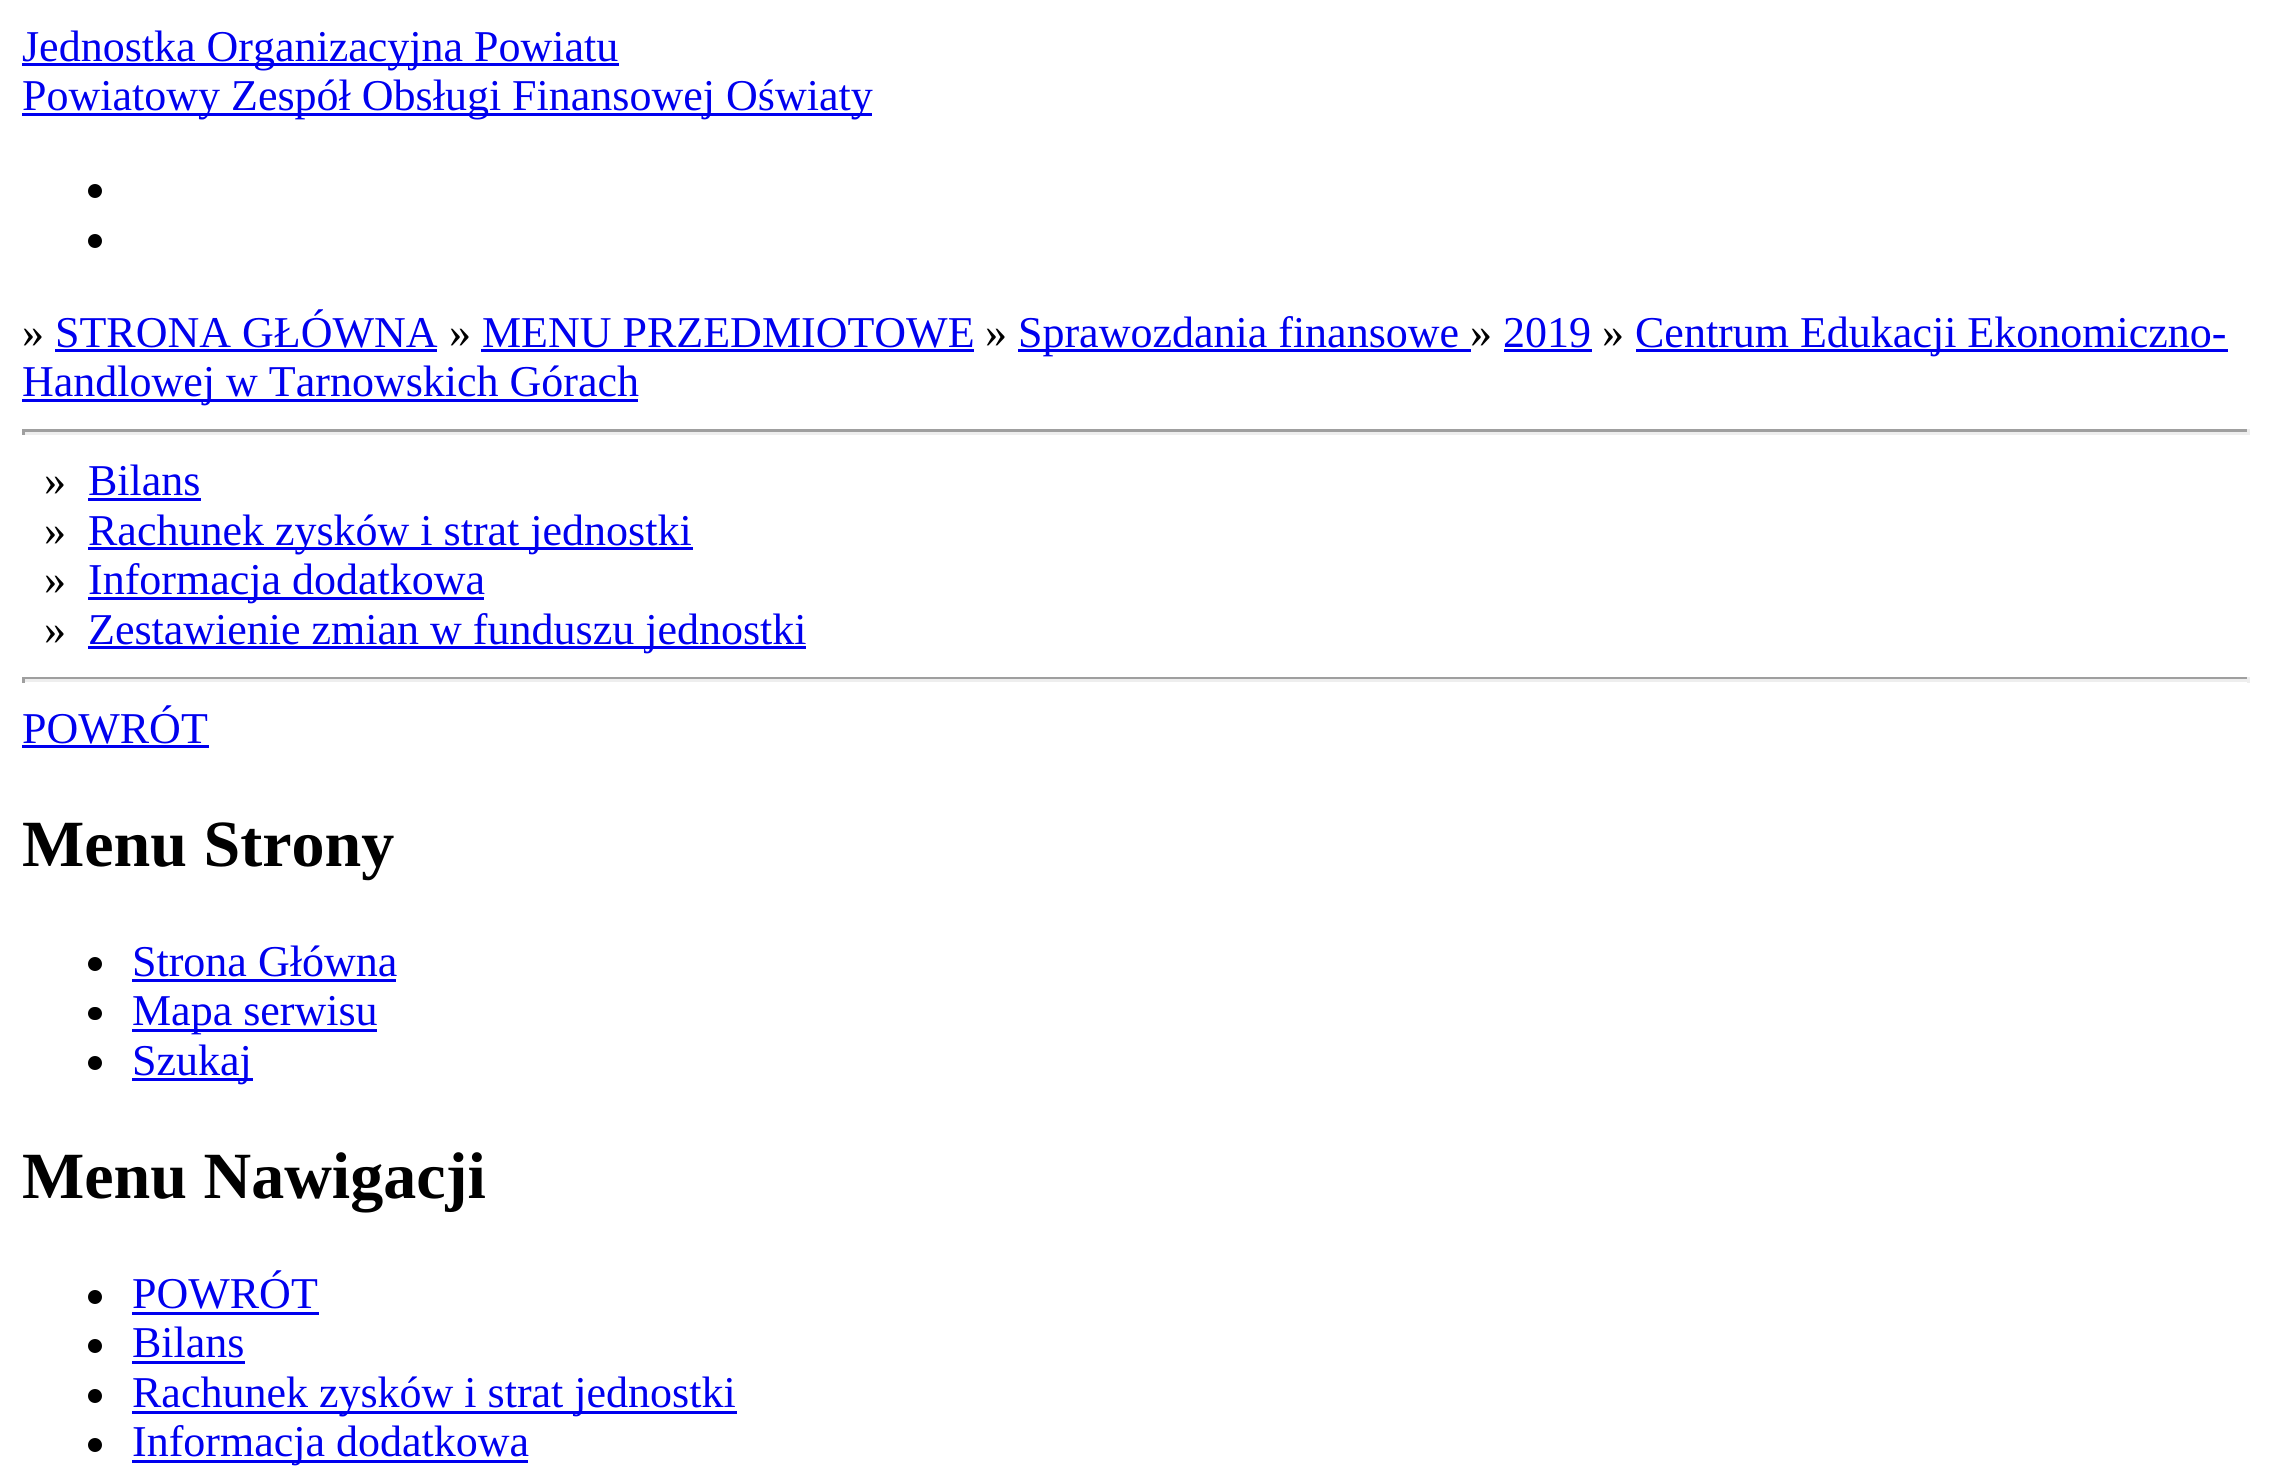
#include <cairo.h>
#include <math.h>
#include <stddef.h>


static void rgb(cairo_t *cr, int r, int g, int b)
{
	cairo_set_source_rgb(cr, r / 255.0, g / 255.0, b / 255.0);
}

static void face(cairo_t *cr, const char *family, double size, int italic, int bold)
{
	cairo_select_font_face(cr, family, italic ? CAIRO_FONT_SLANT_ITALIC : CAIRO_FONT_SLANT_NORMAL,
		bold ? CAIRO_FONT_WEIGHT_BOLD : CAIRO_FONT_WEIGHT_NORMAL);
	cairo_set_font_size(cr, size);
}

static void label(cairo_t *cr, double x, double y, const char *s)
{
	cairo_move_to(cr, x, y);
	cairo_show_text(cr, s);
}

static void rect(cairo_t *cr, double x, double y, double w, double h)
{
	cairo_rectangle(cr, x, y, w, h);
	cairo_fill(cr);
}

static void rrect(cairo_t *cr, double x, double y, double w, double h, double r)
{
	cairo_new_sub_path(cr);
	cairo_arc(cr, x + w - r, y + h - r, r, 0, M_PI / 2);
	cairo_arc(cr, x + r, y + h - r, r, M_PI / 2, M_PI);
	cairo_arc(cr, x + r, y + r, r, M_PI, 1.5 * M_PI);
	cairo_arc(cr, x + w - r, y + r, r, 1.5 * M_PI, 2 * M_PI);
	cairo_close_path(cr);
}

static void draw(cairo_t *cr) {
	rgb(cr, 255, 255, 255);
	cairo_paint(cr);
	rgb(cr, 0, 0, 238);
	rect(cr, 22, 63, 597, 3);
	face(cr, "Liberation Serif", 44, 0, 0);
	label(cr, 22, 61, "Jednostka Organizacyjna Powiatu");
	rect(cr, 22, 113, 850, 3);
	label(cr, 22, 110, "Powiatowy Zespół Obsługi Finansowej Oświaty");
	rgb(cr, 0, 0, 0);
	cairo_new_path(cr);
	cairo_arc(cr, 95, 191, 7, 0, 2 * M_PI);
	cairo_fill(cr);
	cairo_arc(cr, 95, 241, 7, 0, 2 * M_PI);
	cairo_fill(cr);
	label(cr, 22, 347, "»");
	rgb(cr, 0, 0, 238);
	label(cr, 55, 347, "STRONA GŁÓWNA");
	rect(cr, 55, 349, 382, 3);
	rgb(cr, 0, 0, 0);
	label(cr, 449, 347, "»");
	rgb(cr, 0, 0, 238);
	label(cr, 482, 347, "MENU PRZEDMIOTOWE");
	rect(cr, 481, 349, 493, 3);
	rgb(cr, 0, 0, 0);
	label(cr, 985, 347, "»");
	rgb(cr, 0, 0, 238);
	rect(cr, 1018, 349, 453, 3);
	label(cr, 1018, 347, "Sprawozdania finansowe");
	rgb(cr, 0, 0, 0);
	label(cr, 1470, 347, "»");
	rgb(cr, 0, 0, 238);
	label(cr, 1503, 347, "2019");
	rect(cr, 1504, 349, 88, 3);
	rgb(cr, 0, 0, 0);
	label(cr, 1602, 347, "»");
	rgb(cr, 0, 0, 238);
	rect(cr, 1636, 349, 592, 3);
	label(cr, 1635, 347, "Centrum Edukacji Ekonomiczno-");
	rect(cr, 22, 399, 616, 3);
	label(cr, 22, 396, "Handlowej w Tarnowskich Górach");
	rgb(cr, 159, 159, 159);
	rect(cr, 22, 429, 2228, 3);
	rgb(cr, 238, 238, 238);
	rect(cr, 2247, 429, 3, 6);
	rect(cr, 22, 432, 2228, 3);
	rgb(cr, 159, 159, 159);
	rect(cr, 22, 429, 3, 6);
	rgb(cr, 0, 0, 0);
	label(cr, 44, 495, "»");
	rgb(cr, 0, 0, 238);
	label(cr, 88, 495, "Bilans");
	rect(cr, 88, 498, 113, 3);
	rgb(cr, 0, 0, 0);
	label(cr, 44, 545, "»");
	rgb(cr, 0, 0, 238);
	rect(cr, 88, 547, 605, 3);
	label(cr, 88, 545, "Rachunek zysków i strat jednostki");
	rgb(cr, 0, 0, 0);
	label(cr, 44, 594, "»");
	rgb(cr, 0, 0, 238);
	rect(cr, 88, 597, 396, 3);
	label(cr, 88, 594, "Informacja dodatkowa");
	rgb(cr, 0, 0, 0);
	label(cr, 44, 644, "»");
	rgb(cr, 0, 0, 238);
	rect(cr, 88, 646, 718, 3);
	label(cr, 88, 644, "Zestawienie zmian w funduszu jednostki");
	rgb(cr, 159, 159, 159);
	rect(cr, 22, 677, 2228, 2);
	rgb(cr, 238, 238, 238);
	rect(cr, 2247, 677, 3, 6);
	rect(cr, 22, 679, 2228, 3);
	rgb(cr, 159, 159, 159);
	rect(cr, 22, 677, 3, 6);
	rgb(cr, 0, 0, 238);
	label(cr, 22, 743, "POWRÓT");
	rect(cr, 22, 745, 187, 3);
	face(cr, "Liberation Serif", 66, 0, 1);
	rgb(cr, 0, 0, 0);
	label(cr, 22, 866, "Menu Strony");
	cairo_new_path(cr);
	cairo_arc(cr, 95, 964, 7, 0, 2 * M_PI);
	cairo_fill(cr);
	face(cr, "Liberation Serif", 44, 0, 0);
	rgb(cr, 0, 0, 238);
	label(cr, 132, 976, "Strona Główna");
	rect(cr, 132, 979, 264, 3);
	rgb(cr, 0, 0, 0);
	rrect(cr, 88, 1007, 14, 13, 6.5);
	cairo_fill(cr);
	rgb(cr, 0, 0, 238);
	rect(cr, 132, 1029, 245, 3);
	label(cr, 132, 1025, "Mapa serwisu");
	rgb(cr, 0, 0, 0);
	cairo_new_path(cr);
	cairo_arc(cr, 95, 1063, 7, 0, 2 * M_PI);
	cairo_fill(cr);
	rgb(cr, 0, 0, 238);
	rect(cr, 132, 1078, 121, 3);
	label(cr, 132, 1075, "Szukaj");
	face(cr, "Liberation Serif", 66, 0, 1);
	rgb(cr, 0, 0, 0);
	label(cr, 22, 1198, "Menu Nawigacji");
	cairo_new_path(cr);
	cairo_arc(cr, 95, 1297, 7, 0, 2 * M_PI);
	cairo_fill(cr);
	face(cr, "Liberation Serif", 44, 0, 0);
	rgb(cr, 0, 0, 238);
	label(cr, 132, 1308, "POWRÓT");
	rect(cr, 132, 1312, 187, 3);
	rgb(cr, 0, 0, 0);
	cairo_new_path(cr);
	cairo_arc(cr, 95, 1346, 7, 0, 2 * M_PI);
	cairo_fill(cr);
	rgb(cr, 0, 0, 238);
	label(cr, 132, 1357, "Bilans");
	rect(cr, 132, 1361, 113, 3);
	rgb(cr, 0, 0, 0);
	cairo_new_path(cr);
	cairo_arc(cr, 95, 1396, 7, 0, 2 * M_PI);
	cairo_fill(cr);
	rgb(cr, 0, 0, 238);
	rect(cr, 132, 1411, 605, 3);
	label(cr, 132, 1407, "Rachunek zysków i strat jednostki");
	rgb(cr, 0, 0, 0);
	cairo_new_path(cr);
	cairo_arc(cr, 95, 1445, 7, 0, 2 * M_PI);
	cairo_fill(cr);
	rgb(cr, 0, 0, 238);
	rect(cr, 132, 1460, 396, 3);
	label(cr, 132, 1456, "Informacja dodatkowa");
}

int main(void) {
	cairo_surface_t *surface = cairo_image_surface_create(CAIRO_FORMAT_RGB24, 2270, 1470);
	cairo_t *cr = cairo_create(surface);
	cairo_font_options_t *options = cairo_font_options_create();
	cairo_font_options_set_hint_metrics(options, CAIRO_HINT_METRICS_OFF);
	cairo_font_options_set_hint_style(options, CAIRO_HINT_STYLE_NONE);
	cairo_set_font_options(cr, options);
	cairo_set_miter_limit(cr, 4);
	draw(cr);
	cairo_surface_write_to_png(surface, "render.png");
	cairo_font_options_destroy(options);
	cairo_destroy(cr);
	cairo_surface_destroy(surface);
	return 0;
}
